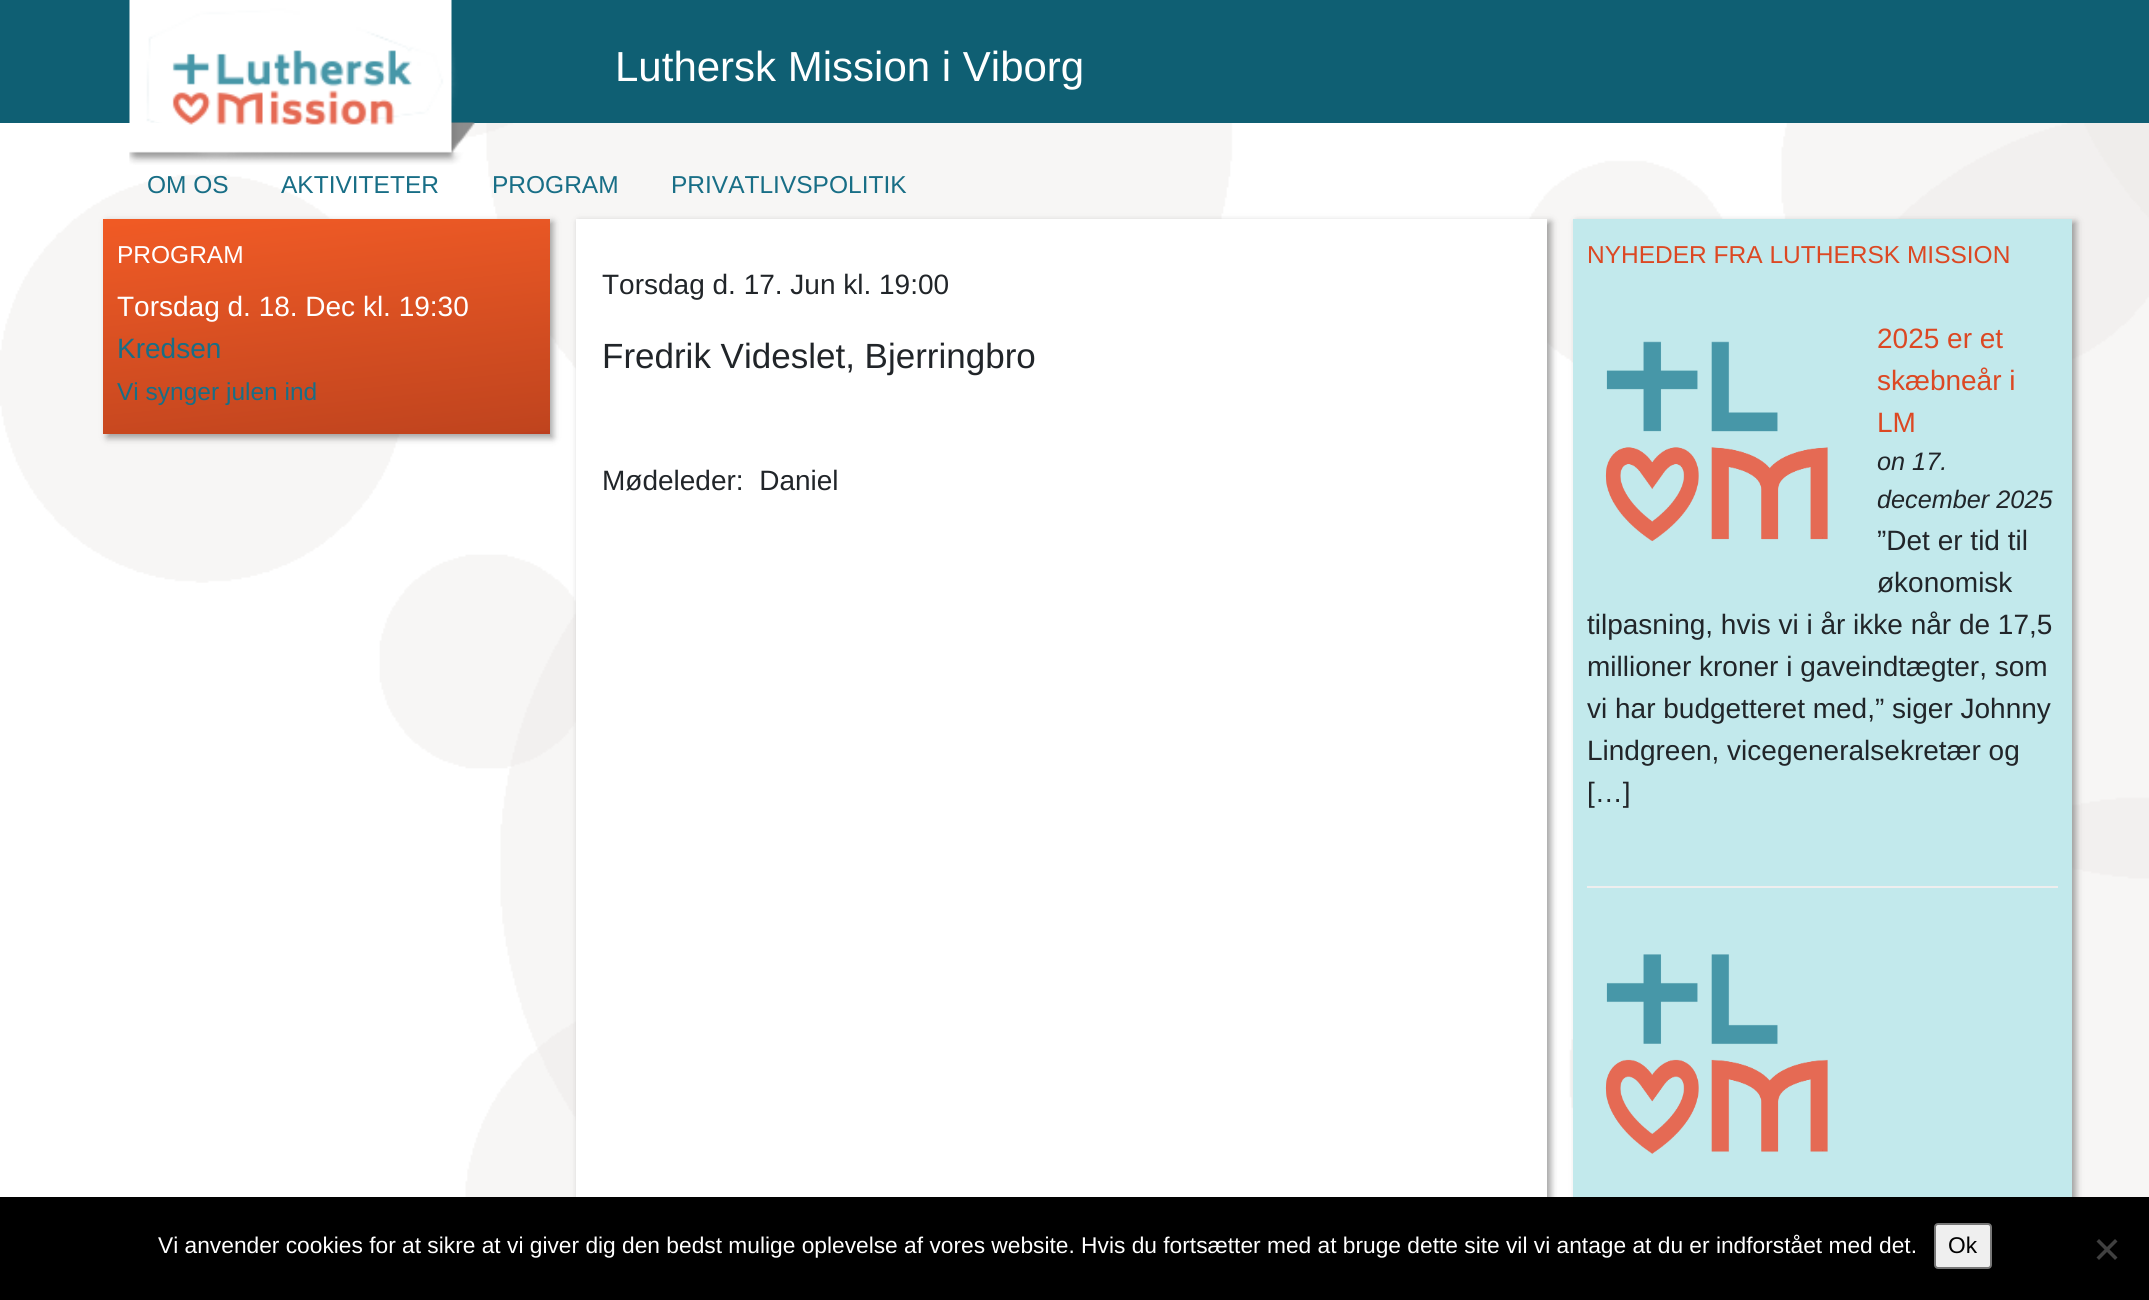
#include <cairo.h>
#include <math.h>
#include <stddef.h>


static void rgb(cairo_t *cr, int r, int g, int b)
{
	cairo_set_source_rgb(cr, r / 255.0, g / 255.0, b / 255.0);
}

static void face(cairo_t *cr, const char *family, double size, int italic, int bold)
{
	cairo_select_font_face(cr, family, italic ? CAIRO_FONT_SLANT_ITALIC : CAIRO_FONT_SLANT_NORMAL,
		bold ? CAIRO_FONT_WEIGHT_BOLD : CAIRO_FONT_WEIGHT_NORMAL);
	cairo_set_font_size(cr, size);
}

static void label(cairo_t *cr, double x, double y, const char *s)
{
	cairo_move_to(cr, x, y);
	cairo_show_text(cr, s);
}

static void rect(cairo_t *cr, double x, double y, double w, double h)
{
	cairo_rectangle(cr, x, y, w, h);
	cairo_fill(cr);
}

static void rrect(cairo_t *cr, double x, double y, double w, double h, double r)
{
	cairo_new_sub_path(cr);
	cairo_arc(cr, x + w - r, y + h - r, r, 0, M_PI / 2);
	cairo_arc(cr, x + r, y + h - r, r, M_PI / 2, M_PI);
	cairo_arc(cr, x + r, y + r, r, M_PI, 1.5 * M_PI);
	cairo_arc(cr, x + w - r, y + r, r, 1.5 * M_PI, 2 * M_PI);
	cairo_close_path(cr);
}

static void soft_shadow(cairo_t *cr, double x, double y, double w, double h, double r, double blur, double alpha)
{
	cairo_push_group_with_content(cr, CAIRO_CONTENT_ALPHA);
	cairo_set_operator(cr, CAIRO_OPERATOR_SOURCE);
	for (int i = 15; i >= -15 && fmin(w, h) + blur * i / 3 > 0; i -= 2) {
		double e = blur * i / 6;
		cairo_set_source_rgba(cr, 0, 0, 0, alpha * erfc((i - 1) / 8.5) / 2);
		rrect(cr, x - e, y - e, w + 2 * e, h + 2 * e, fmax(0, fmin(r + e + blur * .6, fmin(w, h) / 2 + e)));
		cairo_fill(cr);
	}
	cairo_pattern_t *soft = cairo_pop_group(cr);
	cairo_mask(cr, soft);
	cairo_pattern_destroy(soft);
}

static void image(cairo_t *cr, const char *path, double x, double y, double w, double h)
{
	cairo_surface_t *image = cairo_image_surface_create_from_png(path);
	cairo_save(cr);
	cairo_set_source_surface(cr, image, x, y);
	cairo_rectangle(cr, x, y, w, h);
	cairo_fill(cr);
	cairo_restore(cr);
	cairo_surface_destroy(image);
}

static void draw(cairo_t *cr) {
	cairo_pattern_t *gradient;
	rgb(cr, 255, 255, 255);
	cairo_paint(cr);
	image(cr, "image0.png", 0, 123, 2149, 1074);
	rgb(cr, 15, 95, 115);
	rect(cr, 0, 0, 2149, 123);
	image(cr, "image1.png", 129, 0, 346, 165);
	face(cr, "Liberation Sans", 42, 0, 0);
	rgb(cr, 255, 255, 255);
	label(cr, 615, 81, "Luthersk Mission i Viborg");
	cairo_set_source_rgba(cr, 1, 1, 1, 0.1);
	rect(cr, 130, 123, 345, 38);
	face(cr, "Liberation Sans", 24.5, 0, 0);
	rgb(cr, 24, 110, 134);
	label(cr, 147, 193, "OM OS");
	label(cr, 281, 193, "AKTIVITETER");
	label(cr, 492, 193, "PROGRAM");
	label(cr, 671, 193, "PRIVATLIVSPOLITIK");
	rgb(cr, 50, 50, 50);
	soft_shadow(cr, 107, 222, 446, 216, 0, 3.5, 0.45);
	gradient = cairo_pattern_create_linear(313, 197, 340, 456);
	cairo_pattern_add_color_stop_rgba(gradient, 0, 0.945, 0.353, 0.141, 1);
	cairo_pattern_add_color_stop_rgba(gradient, 0.14, 0.918, 0.345, 0.145, 1);
	cairo_pattern_add_color_stop_rgba(gradient, 0.98, 0.753, 0.267, 0.118, 1);
	cairo_pattern_add_color_stop_rgba(gradient, 0.99, 0.737, 0.243, 0.122, 1);
	cairo_set_source(cr, gradient);
	cairo_pattern_destroy(gradient);
	rect(cr, 103, 219, 447, 215);
	rgb(cr, 255, 255, 255);
	label(cr, 117, 263, "PROGRAM");
	face(cr, "Liberation Sans", 28, 0, 0);
	label(cr, 117, 316, "Torsdag d. 18. Dec kl. 19:30");
	rgb(cr, 24, 110, 134);
	label(cr, 117, 358, "Kredsen");
	face(cr, "Liberation Sans", 24.5, 0, 0);
	label(cr, 117, 400, "Vi synger julen ind");
	rgb(cr, 50, 50, 50);
	soft_shadow(cr, 579, 222, 972, 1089, 0, 3.5, 0.45);
	rgb(cr, 255, 255, 255);
	rect(cr, 576, 219, 971, 978);
	face(cr, "Liberation Sans", 28, 0, 0);
	rgb(cr, 33, 37, 41);
	label(cr, 602, 294, "Torsdag d. 17. Jun kl. 19:00");
	face(cr, "Liberation Sans", 35, 0, 0);
	label(cr, 602, 368, "Fredrik Videslet, Bjerringbro");
	face(cr, "Liberation Sans", 28, 0, 0);
	label(cr, 602, 490, "Mødeleder:  Daniel");
	rgb(cr, 50, 50, 50);
	soft_shadow(cr, 1577, 222, 499, 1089, 0, 3.5, 0.45);
	rgb(cr, 194, 233, 236);
	rect(cr, 1573, 219, 499, 978);
	face(cr, "Liberation Sans", 24.5, 0, 0);
	rgb(cr, 220, 72, 35);
	label(cr, 1587, 263, "NYHEDER FRA LUTHERSK MISSION");
	rgb(cr, 238, 238, 238);
	rect(cr, 1587, 886, 471, 2);
	face(cr, "Liberation Sans", 28, 0, 0);
	rgb(cr, 220, 72, 35);
	label(cr, 1877, 348, "2025 er et");
	image(cr, "image2.png", 1605, 341, 223, 201);
	label(cr, 1877, 390, "skæbneår i");
	label(cr, 1877, 432, "LM");
	face(cr, "Liberation Sans", 25.25, 1, 0);
	rgb(cr, 33, 37, 41);
	label(cr, 1877, 470, "on 17.");
	label(cr, 1877, 508, "december 2025");
	face(cr, "Liberation Sans", 28, 0, 0);
	label(cr, 1877, 550, "”Det er tid til");
	label(cr, 1877, 592, "økonomisk");
	label(cr, 1587, 634, "tilpasning, hvis vi i år ikke når de 17,5");
	label(cr, 1587, 676, "millioner kroner i gaveindtægter, som");
	label(cr, 1587, 718, "vi har budgetteret med,” siger Johnny");
	label(cr, 1587, 760, "Lindgreen, vicegeneralsekretær og");
	label(cr, 1587, 802, "[…]");
	image(cr, "image3.png", 1605, 954, 223, 200);
	rgb(cr, 0, 0, 0);
	rect(cr, 0, 1197, 2149, 103);
	face(cr, "Liberation Sans", 22.75, 0, 0);
	rgb(cr, 255, 255, 255);
	label(cr, 158, 1253, "Vi anvender cookies for at sikre at vi giver dig den bedst mulige oplevelse af vores website. Hvis du fortsætter med at bruge dette site vil vi antage at du er indforstået med det.");
	rgb(cr, 239, 239, 239);
	rrect(cr, 1935, 1224, 56, 44, 3);
	cairo_fill_preserve(cr);
	rgb(cr, 118, 118, 118);
	cairo_stroke(cr);
	rgb(cr, 0, 0, 0);
	label(cr, 1948, 1253, "Ok");
	rgb(cr, 64, 64, 64);
	cairo_new_path(cr);
	cairo_move_to(cr, 2115, 1239);
	cairo_line_to(cr, 2117.5, 1241.5);
	cairo_line_to(cr, 2099, 1260);
	cairo_line_to(cr, 2096.5, 1257.5);
	cairo_close_path(cr);
	cairo_fill(cr);
	cairo_new_path(cr);
	cairo_move_to(cr, 2096.5, 1241.5);
	cairo_line_to(cr, 2099, 1239);
	cairo_line_to(cr, 2117.5, 1257.5);
	cairo_line_to(cr, 2115, 1260);
	cairo_close_path(cr);
	cairo_fill(cr);
}

int main(void) {
	cairo_surface_t *surface = cairo_image_surface_create(CAIRO_FORMAT_RGB24, 2149, 1300);
	cairo_t *cr = cairo_create(surface);
	cairo_font_options_t *options = cairo_font_options_create();
	cairo_font_options_set_hint_metrics(options, CAIRO_HINT_METRICS_OFF);
	cairo_font_options_set_hint_style(options, CAIRO_HINT_STYLE_NONE);
	cairo_set_font_options(cr, options);
	cairo_set_miter_limit(cr, 4);
	draw(cr);
	cairo_surface_write_to_png(surface, "render.png");
	cairo_font_options_destroy(options);
	cairo_destroy(cr);
	cairo_surface_destroy(surface);
	return 0;
}
